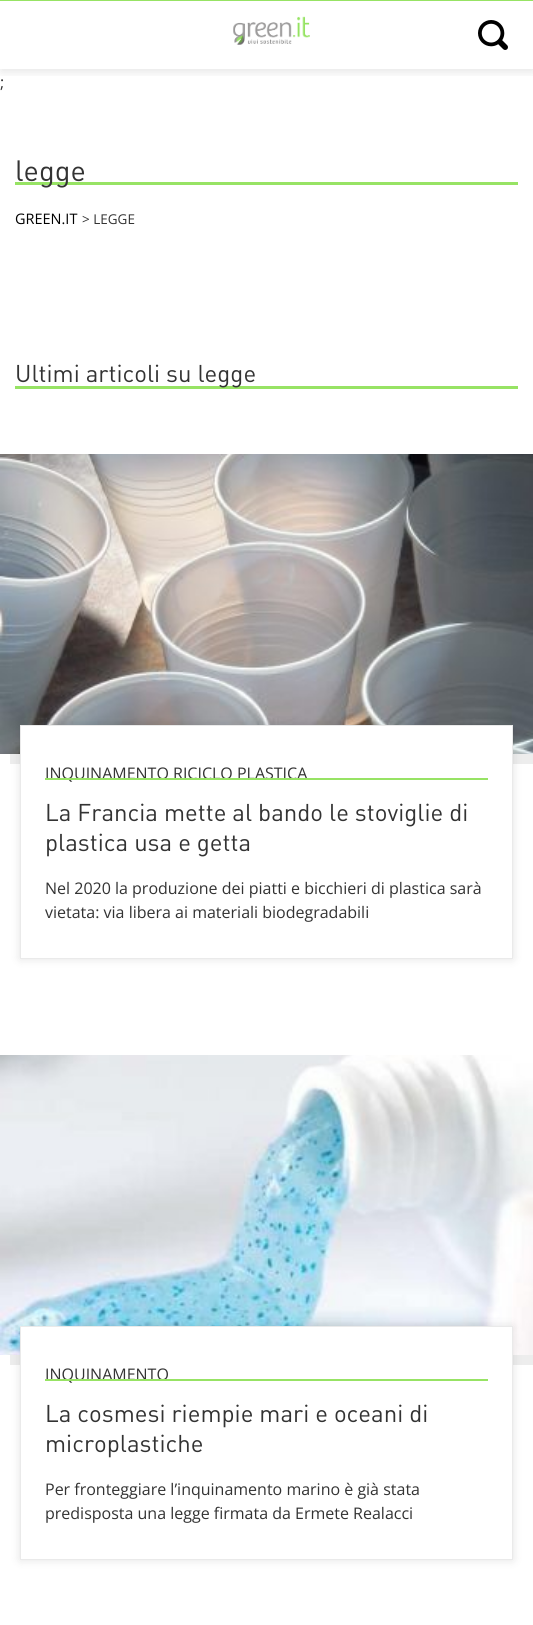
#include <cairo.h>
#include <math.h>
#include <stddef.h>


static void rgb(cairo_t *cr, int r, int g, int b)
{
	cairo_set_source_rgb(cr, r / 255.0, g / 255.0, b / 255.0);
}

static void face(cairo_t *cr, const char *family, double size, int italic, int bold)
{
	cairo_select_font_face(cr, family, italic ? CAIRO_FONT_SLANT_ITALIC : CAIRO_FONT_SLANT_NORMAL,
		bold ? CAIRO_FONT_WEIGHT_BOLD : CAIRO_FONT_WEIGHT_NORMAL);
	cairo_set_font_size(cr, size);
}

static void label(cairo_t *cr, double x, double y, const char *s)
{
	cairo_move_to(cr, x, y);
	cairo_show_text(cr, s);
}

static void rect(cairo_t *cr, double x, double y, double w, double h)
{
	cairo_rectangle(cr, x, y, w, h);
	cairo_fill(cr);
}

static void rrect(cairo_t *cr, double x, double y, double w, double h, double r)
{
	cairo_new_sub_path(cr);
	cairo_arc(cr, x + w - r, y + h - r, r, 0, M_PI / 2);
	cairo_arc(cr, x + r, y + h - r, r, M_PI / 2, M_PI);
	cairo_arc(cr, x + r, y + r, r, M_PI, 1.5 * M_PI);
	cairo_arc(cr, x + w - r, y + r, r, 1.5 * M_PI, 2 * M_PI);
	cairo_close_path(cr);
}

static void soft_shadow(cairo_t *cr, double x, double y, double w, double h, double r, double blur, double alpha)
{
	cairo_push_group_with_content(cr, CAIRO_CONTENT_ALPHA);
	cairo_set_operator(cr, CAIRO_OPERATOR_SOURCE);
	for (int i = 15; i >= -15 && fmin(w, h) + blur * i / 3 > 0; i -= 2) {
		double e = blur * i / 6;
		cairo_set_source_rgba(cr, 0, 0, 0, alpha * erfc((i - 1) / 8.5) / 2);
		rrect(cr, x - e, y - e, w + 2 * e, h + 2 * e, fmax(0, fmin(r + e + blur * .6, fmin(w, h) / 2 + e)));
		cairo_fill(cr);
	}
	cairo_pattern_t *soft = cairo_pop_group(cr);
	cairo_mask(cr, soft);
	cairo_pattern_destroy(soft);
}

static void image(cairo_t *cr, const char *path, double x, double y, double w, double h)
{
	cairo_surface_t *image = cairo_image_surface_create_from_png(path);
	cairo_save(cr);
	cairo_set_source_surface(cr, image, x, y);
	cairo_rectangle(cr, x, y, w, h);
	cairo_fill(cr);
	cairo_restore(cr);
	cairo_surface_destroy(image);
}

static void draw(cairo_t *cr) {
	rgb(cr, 255, 255, 255);
	cairo_paint(cr);
	cairo_save(cr);
	cairo_rectangle(cr, 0, 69, 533, 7);
	cairo_clip(cr);
	rgb(cr, 0, 0, 0);
	soft_shadow(cr, 1, 3, 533, 69, 0, 5, 0.1);
	cairo_restore(cr);
	rgb(cr, 151, 227, 100);
	rect(cr, 0, 0, 533, 1);
	image(cr, "image0.png", 233, 16, 77, 29);
	image(cr, "image1.png", 478, 20, 30, 30);
	face(cr, "Open Sans", 16, 0, 0);
	rgb(cr, 51, 51, 51);
	label(cr, 0, 88, ";");
	rgb(cr, 151, 227, 100);
	rect(cr, 15, 182, 503, 3);
	face(cr, "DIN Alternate", 29, 0, 0);
	rgb(cr, 51, 51, 51);
	label(cr, 15, 181, "legge");
	face(cr, "Open Sans", 14.5, 0, 0);
	rgb(cr, 0, 0, 0);
	label(cr, 15, 224, "GREEN.IT");
	face(cr, "Open Sans", 13.5, 0, 0);
	rgb(cr, 51, 51, 51);
	label(cr, 82, 224, "> LEGGE");
	rgb(cr, 151, 227, 100);
	rect(cr, 15, 386, 503, 3);
	face(cr, "DIN Alternate", 24, 0, 0);
	rgb(cr, 51, 51, 51);
	label(cr, 15, 382, "Ultimi articoli su legge");
	image(cr, "image2.png", 0, 454, 533, 300);
	rgb(cr, 237, 237, 237);
	cairo_new_path(cr);
	cairo_move_to(cr, 10, 754);
	cairo_line_to(cr, 10, 764);
	cairo_line_to(cr, 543, 764);
	cairo_line_to(cr, 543, 464);
	cairo_line_to(cr, 533, 464);
	cairo_line_to(cr, 533, 754);
	cairo_close_path(cr);
	cairo_fill(cr);
	rgb(cr, 0, 0, 0);
	soft_shadow(cr, 20, 725, 493, 234, 0, 5, 0.11);
	rgb(cr, 255, 255, 255);
	cairo_rectangle(cr, 20.5, 725.5, 492, 233);
	cairo_fill_preserve(cr);
	rgb(cr, 234, 234, 234);
	cairo_set_line_width(cr, 1);
	cairo_stroke(cr);
	face(cr, "Open Sans", 16, 0, 0);
	rgb(cr, 51, 51, 51);
	label(cr, 45, 779, "INQUINAMENTO RICICLO PLASTICA");
	rgb(cr, 151, 227, 100);
	rect(cr, 45, 778, 443, 2);
	face(cr, "DIN Alternate", 24, 0, 0);
	rgb(cr, 51, 51, 51);
	label(cr, 45, 821, "La Francia mette al bando le stoviglie di");
	label(cr, 45, 851, "plastica usa e getta");
	face(cr, "Open Sans", 16, 0, 0);
	label(cr, 45, 894, "Nel 2020 la produzione dei piatti e bicchieri di plastica sarà");
	label(cr, 45, 918, "vietata: via libera ai materiali biodegradabili");
	image(cr, "image3.png", 0, 1055, 533, 300);
	rgb(cr, 237, 237, 237);
	cairo_new_path(cr);
	cairo_move_to(cr, 10, 1355);
	cairo_line_to(cr, 10, 1365);
	cairo_line_to(cr, 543, 1365);
	cairo_line_to(cr, 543, 1065);
	cairo_line_to(cr, 533, 1065);
	cairo_line_to(cr, 533, 1355);
	cairo_close_path(cr);
	cairo_fill(cr);
	rgb(cr, 0, 0, 0);
	soft_shadow(cr, 20, 1326, 493, 234, 0, 5, 0.11);
	rgb(cr, 255, 255, 255);
	cairo_rectangle(cr, 20.5, 1326.5, 492, 233);
	cairo_fill_preserve(cr);
	rgb(cr, 234, 234, 234);
	cairo_stroke(cr);
	rgb(cr, 51, 51, 51);
	label(cr, 45, 1380, "INQUINAMENTO");
	rgb(cr, 151, 227, 100);
	rect(cr, 45, 1379, 443, 2);
	face(cr, "DIN Alternate", 24, 0, 0);
	rgb(cr, 51, 51, 51);
	label(cr, 45, 1422, "La cosmesi riempie mari e oceani di");
	label(cr, 45, 1452, "microplastiche");
	face(cr, "Open Sans", 16, 0, 0);
	label(cr, 45, 1495, "Per fronteggiare l’inquinamento marino è già stata");
	label(cr, 45, 1519, "predisposta una legge firmata da Ermete Realacci");
}

int main(void) {
	cairo_surface_t *surface = cairo_image_surface_create(CAIRO_FORMAT_RGB24, 533, 1625);
	cairo_t *cr = cairo_create(surface);
	cairo_font_options_t *options = cairo_font_options_create();
	cairo_font_options_set_hint_metrics(options, CAIRO_HINT_METRICS_OFF);
	cairo_font_options_set_hint_style(options, CAIRO_HINT_STYLE_NONE);
	cairo_set_font_options(cr, options);
	cairo_set_miter_limit(cr, 4);
	draw(cr);
	cairo_surface_write_to_png(surface, "render.png");
	cairo_font_options_destroy(options);
	cairo_destroy(cr);
	cairo_surface_destroy(surface);
	return 0;
}
